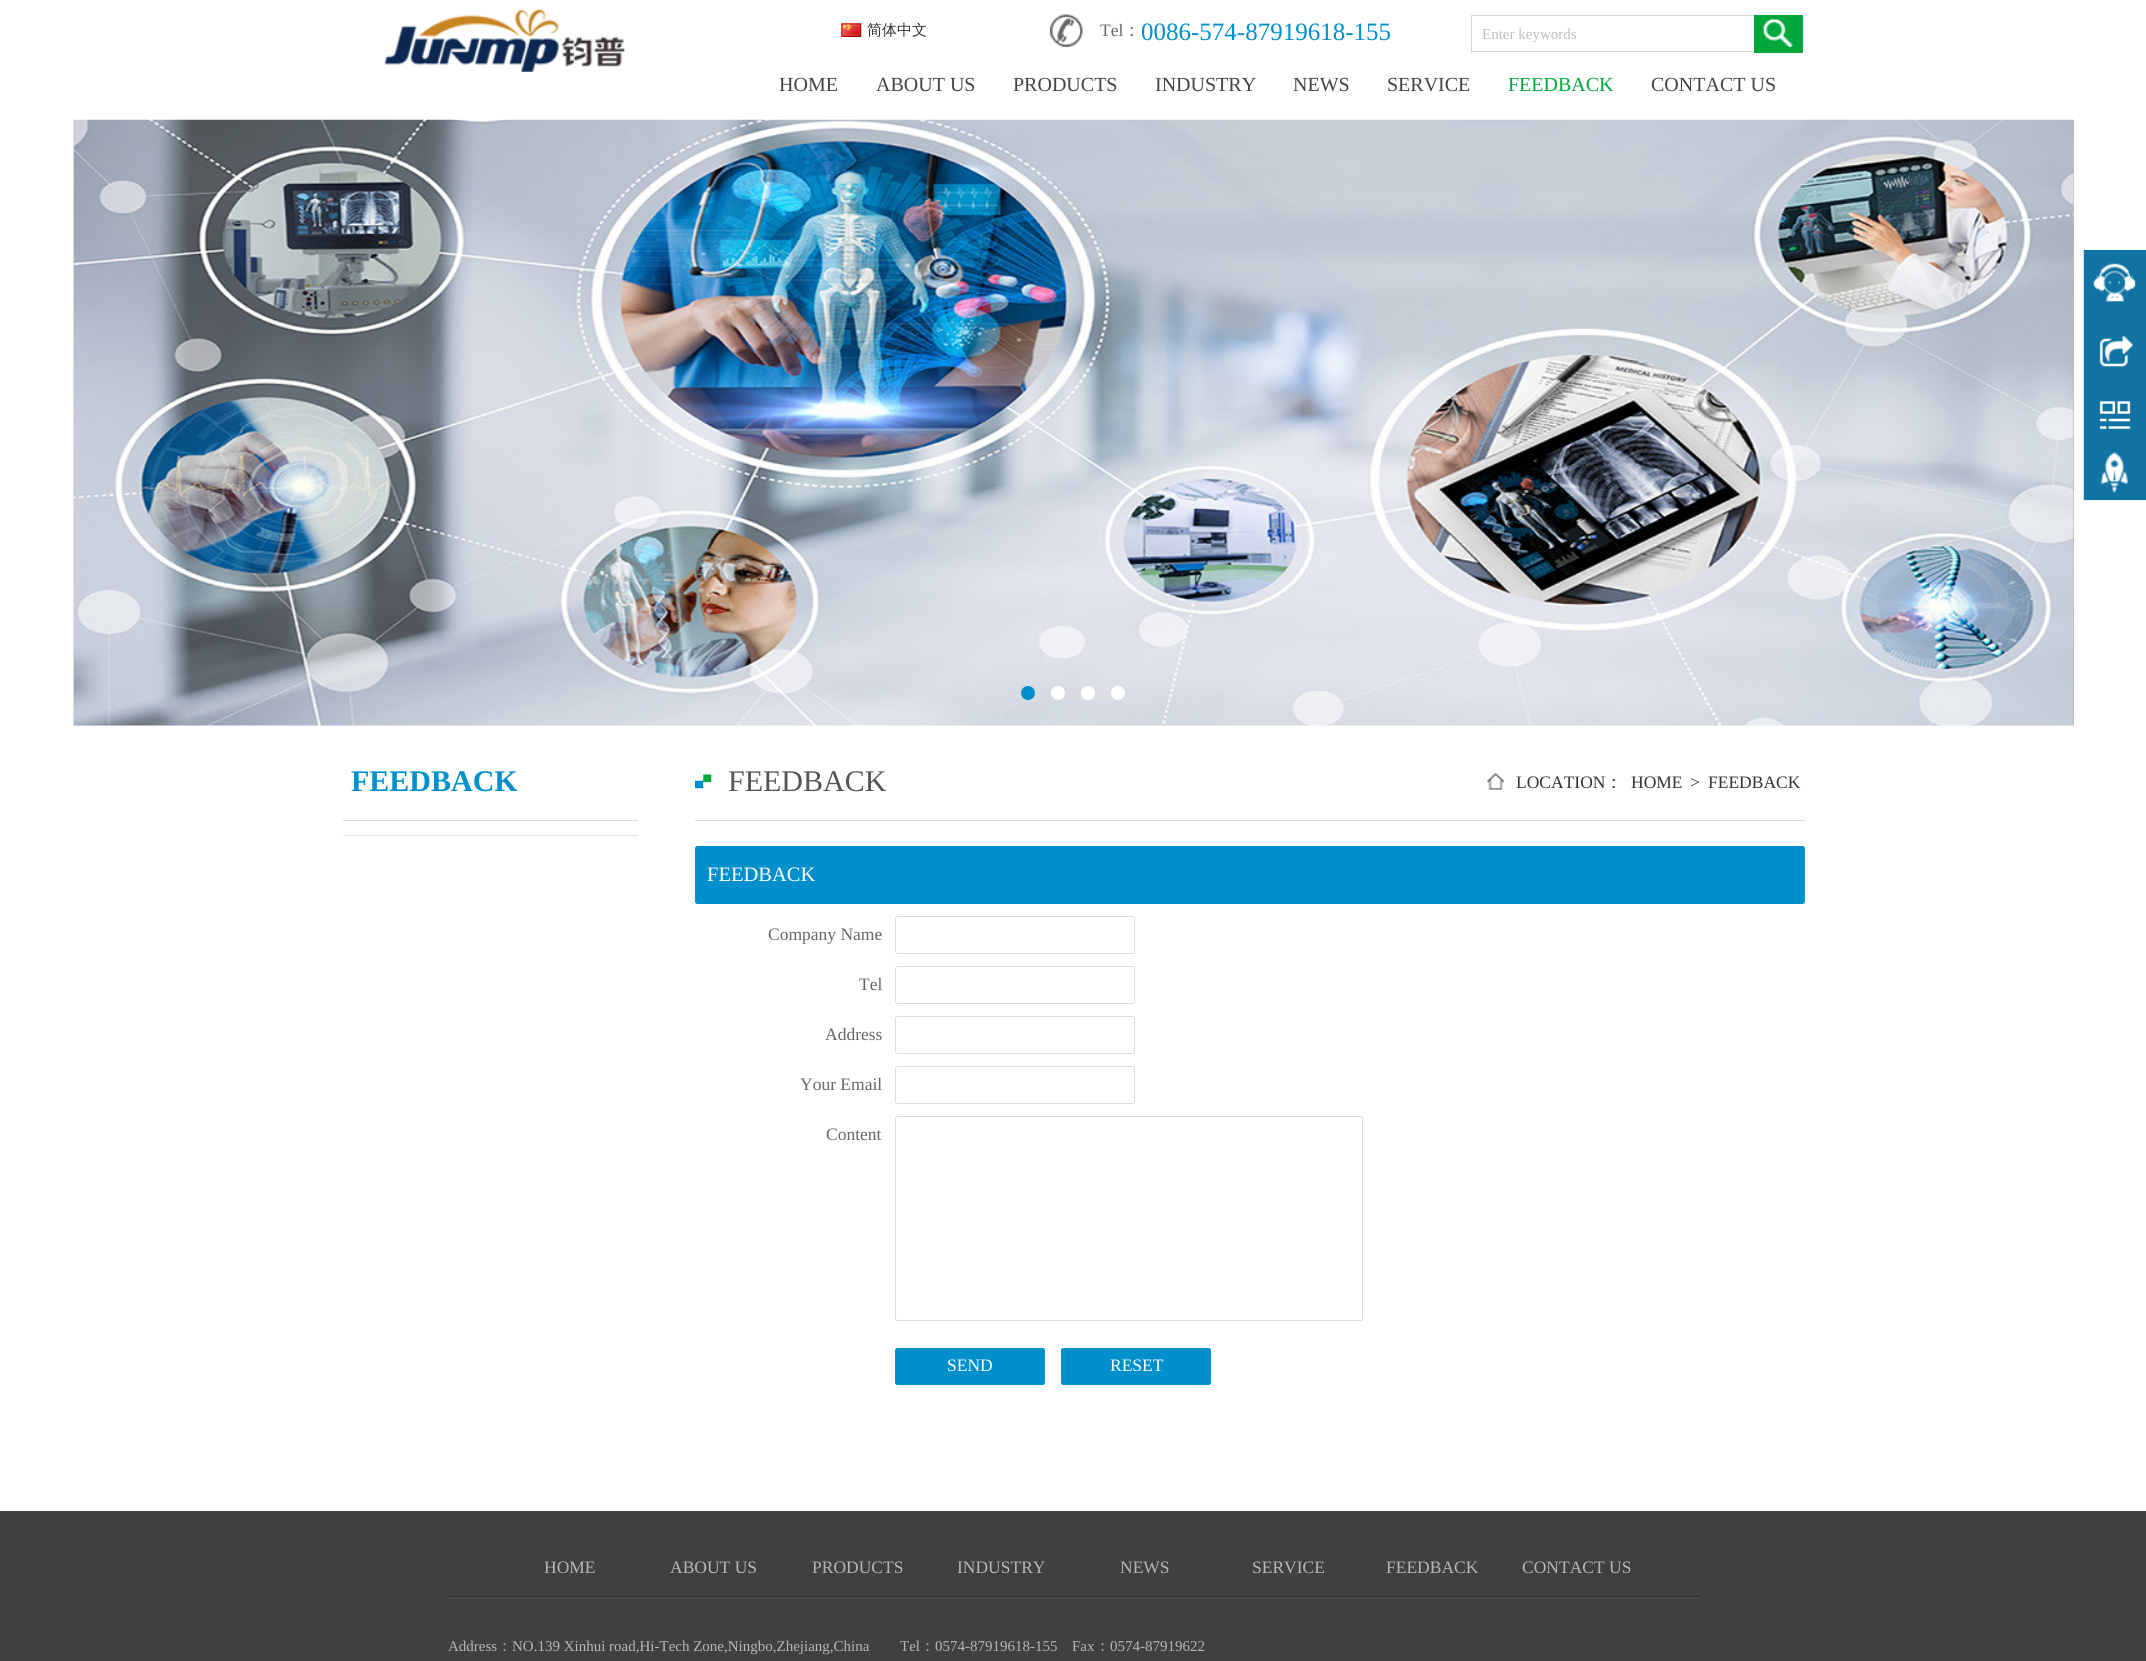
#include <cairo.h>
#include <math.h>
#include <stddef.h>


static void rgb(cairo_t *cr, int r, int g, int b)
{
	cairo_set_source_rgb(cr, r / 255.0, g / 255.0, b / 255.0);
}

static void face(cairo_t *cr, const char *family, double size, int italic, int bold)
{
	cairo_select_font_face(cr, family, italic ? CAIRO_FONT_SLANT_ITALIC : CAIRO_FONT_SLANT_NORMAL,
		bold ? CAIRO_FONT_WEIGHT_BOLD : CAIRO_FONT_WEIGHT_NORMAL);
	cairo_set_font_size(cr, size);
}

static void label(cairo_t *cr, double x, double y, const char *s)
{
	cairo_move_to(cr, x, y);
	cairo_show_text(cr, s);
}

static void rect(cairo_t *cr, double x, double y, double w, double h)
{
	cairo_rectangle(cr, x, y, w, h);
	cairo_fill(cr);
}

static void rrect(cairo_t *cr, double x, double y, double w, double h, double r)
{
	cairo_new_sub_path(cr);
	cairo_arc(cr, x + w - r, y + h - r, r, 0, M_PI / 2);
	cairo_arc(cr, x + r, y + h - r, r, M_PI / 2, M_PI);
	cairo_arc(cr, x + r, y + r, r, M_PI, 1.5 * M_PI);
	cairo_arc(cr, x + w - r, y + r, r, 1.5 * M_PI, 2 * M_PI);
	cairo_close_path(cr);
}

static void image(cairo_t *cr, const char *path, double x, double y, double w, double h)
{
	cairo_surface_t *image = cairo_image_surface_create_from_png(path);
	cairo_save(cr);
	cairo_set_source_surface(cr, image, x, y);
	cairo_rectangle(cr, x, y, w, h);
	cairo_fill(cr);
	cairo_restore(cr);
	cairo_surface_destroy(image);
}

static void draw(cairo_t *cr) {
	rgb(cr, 255, 255, 255);
	cairo_paint(cr);
	image(cr, "image0.png", 384, 9, 242, 63);
	image(cr, "image1.png", 841, 23, 21, 14);
	face(cr, "WenQuanYi Zen Hei Medium", 15, 0, 0);
	rgb(cr, 51, 51, 51);
	label(cr, 867, 35, "简体中文");
	image(cr, "image2.png", 1050, 14, 33, 33);
	face(cr, "Liberation Serif", 17.5, 0, 0);
	rgb(cr, 102, 102, 102);
	label(cr, 1100, 36, "Tel");
	face(cr, "WenQuanYi Zen Hei Medium", 17.5, 0, 0);
	label(cr, 1123, 36, "：");
	face(cr, "Liberation Serif", 25, 0, 0);
	rgb(cr, 0, 143, 205);
	label(cr, 1141, 40, "0086-574-87919618-155");
	rgb(cr, 214, 214, 214);
	rect(cr, 1471, 15, 283, 1);
	rect(cr, 1471, 51, 283, 1);
	rect(cr, 1471, 15, 1, 38);
	face(cr, "Liberation Serif", 15, 0, 0);
	rgb(cr, 190, 189, 189);
	label(cr, 1482, 39, "Enter keywords");
	rgb(cr, 0, 168, 60);
	rect(cr, 1754, 15, 49, 38);
	image(cr, "image3.png", 1763, 19, 30, 28);
	face(cr, "Liberation Serif", 20, 0, 0);
	rgb(cr, 68, 68, 68);
	label(cr, 779, 91, "HOME");
	label(cr, 876, 91, "ABOUT US");
	label(cr, 1013, 91, "PRODUCTS");
	label(cr, 1155, 91, "INDUSTRY");
	label(cr, 1293, 91, "NEWS");
	label(cr, 1387, 91, "SERVICE");
	rgb(cr, 0, 168, 60);
	label(cr, 1508, 91, "FEEDBACK");
	rgb(cr, 68, 68, 68);
	label(cr, 1651, 91, "CONTACT US");
	image(cr, "image5.png", 73, 120, 1, 606);
	image(cr, "image4.png", 73, 119, 2001, 607);
	image(cr, "image6.png", 2073, 119, 1, 607);
	rgb(cr, 0, 143, 205);
	cairo_arc(cr, 1028, 693, 7, 0, 2 * M_PI);
	cairo_fill(cr);
	rgb(cr, 255, 255, 255);
	cairo_arc(cr, 1058, 693, 7, 0, 2 * M_PI);
	cairo_fill(cr);
	cairo_arc(cr, 1088, 693, 7, 0, 2 * M_PI);
	cairo_fill(cr);
	cairo_arc(cr, 1118, 693, 7, 0, 2 * M_PI);
	cairo_fill(cr);
	rgb(cr, 227, 227, 227);
	rect(cr, 343, 835, 295, 1);
	rgb(cr, 216, 216, 216);
	rect(cr, 343, 820, 295, 1);
	face(cr, "Liberation Serif", 30, 0, 1);
	rgb(cr, 0, 143, 205);
	label(cr, 351, 791, "FEEDBACK");
	image(cr, "image7.png", 695, 774, 17, 15);
	rgb(cr, 218, 218, 218);
	rect(cr, 695, 820, 1110, 1);
	face(cr, "Liberation Serif", 30, 0, 0);
	rgb(cr, 85, 85, 85);
	label(cr, 728, 791, "FEEDBACK");
	image(cr, "image8.png", 1487, 773, 17, 17);
	face(cr, "Liberation Serif", 17.5, 0, 0);
	rgb(cr, 51, 51, 51);
	label(cr, 1516, 788, "LOCATION");
	face(cr, "WenQuanYi Zen Hei Medium", 17.5, 0, 0);
	label(cr, 1605, 788, "：");
	face(cr, "Liberation Serif", 17.5, 0, 0);
	label(cr, 1631, 788, "HOME");
	label(cr, 1690, 788, ">");
	label(cr, 1708, 788, "FEEDBACK");
	rgb(cr, 0, 143, 205);
	rrect(cr, 695, 846, 1110, 58, 2.5);
	cairo_fill(cr);
	face(cr, "Liberation Serif", 20.5, 0, 0);
	rgb(cr, 255, 255, 255);
	label(cr, 707, 881, "FEEDBACK");
	face(cr, "Liberation Serif", 17.5, 0, 0);
	rgb(cr, 102, 102, 102);
	label(cr, 768, 940, "Company Name");
	rrect(cr, 895.5, 916.5, 239, 37, 2);
	rgb(cr, 221, 221, 221);
	cairo_set_line_width(cr, 1);
	cairo_stroke(cr);
	rgb(cr, 102, 102, 102);
	label(cr, 859, 990, "Tel");
	rrect(cr, 895.5, 966.5, 239, 37, 2);
	rgb(cr, 221, 221, 221);
	cairo_stroke(cr);
	rgb(cr, 102, 102, 102);
	label(cr, 825, 1040, "Address");
	rrect(cr, 895.5, 1016.5, 239, 37, 2);
	rgb(cr, 221, 221, 221);
	cairo_stroke(cr);
	rgb(cr, 102, 102, 102);
	label(cr, 800, 1090, "Your Email");
	rrect(cr, 895.5, 1066.5, 239, 37, 2);
	rgb(cr, 221, 221, 221);
	cairo_stroke(cr);
	rgb(cr, 102, 102, 102);
	label(cr, 826, 1140, "Content");
	rrect(cr, 895.5, 1116.5, 467, 204, 2);
	rgb(cr, 221, 221, 221);
	cairo_stroke(cr);
	rgb(cr, 0, 143, 205);
	rrect(cr, 895.5, 1348.5, 149, 36, 2);
	cairo_fill_preserve(cr);
	cairo_stroke(cr);
	rgb(cr, 255, 255, 255);
	label(cr, 947, 1371, "SEND");
	rgb(cr, 0, 143, 205);
	rrect(cr, 1061.5, 1348.5, 149, 36, 2);
	cairo_fill_preserve(cr);
	cairo_stroke(cr);
	rgb(cr, 255, 255, 255);
	label(cr, 1110, 1371, "RESET");
	rgb(cr, 64, 64, 64);
	rect(cr, 0, 1511, 2146, 150);
	rgb(cr, 183, 182, 182);
	label(cr, 544, 1573, "HOME");
	label(cr, 670, 1573, "ABOUT US");
	label(cr, 812, 1573, "PRODUCTS");
	label(cr, 957, 1573, "INDUSTRY");
	label(cr, 1120, 1573, "NEWS");
	label(cr, 1252, 1573, "SERVICE");
	label(cr, 1386, 1573, "FEEDBACK");
	label(cr, 1522, 1573, "CONTACT US");
	image(cr, "image9.png", 448, 1595, 1251, 4);
	image(cr, "image10.png", 2083, 250, 63, 251);
	face(cr, "Liberation Serif", 15, 0, 0);
	label(cr, 448, 1651, "Address");
	face(cr, "WenQuanYi Zen Hei Medium", 15, 0, 0);
	label(cr, 497, 1651, "：");
	face(cr, "Liberation Serif", 15, 0, 0);
	label(cr, 512, 1651, "NO.139 Xinhui road,Hi-Tech Zone,Ningbo,Zhejiang,China");
	label(cr, 900, 1651, "Tel");
	face(cr, "WenQuanYi Zen Hei Medium", 15, 0, 0);
	label(cr, 920, 1651, "：");
	face(cr, "Liberation Serif", 15, 0, 0);
	label(cr, 935, 1651, "0574-87919618-155");
	label(cr, 1072, 1651, "Fax");
	face(cr, "WenQuanYi Zen Hei Medium", 15, 0, 0);
	label(cr, 1095, 1651, "：");
	face(cr, "Liberation Serif", 15, 0, 0);
	label(cr, 1110, 1651, "0574-87919622");
}

int main(void) {
	cairo_surface_t *surface = cairo_image_surface_create(CAIRO_FORMAT_RGB24, 2146, 1661);
	cairo_t *cr = cairo_create(surface);
	cairo_font_options_t *options = cairo_font_options_create();
	cairo_font_options_set_hint_metrics(options, CAIRO_HINT_METRICS_OFF);
	cairo_font_options_set_hint_style(options, CAIRO_HINT_STYLE_NONE);
	cairo_set_font_options(cr, options);
	cairo_set_miter_limit(cr, 4);
	draw(cr);
	cairo_surface_write_to_png(surface, "render.png");
	cairo_font_options_destroy(options);
	cairo_destroy(cr);
	cairo_surface_destroy(surface);
	return 0;
}
